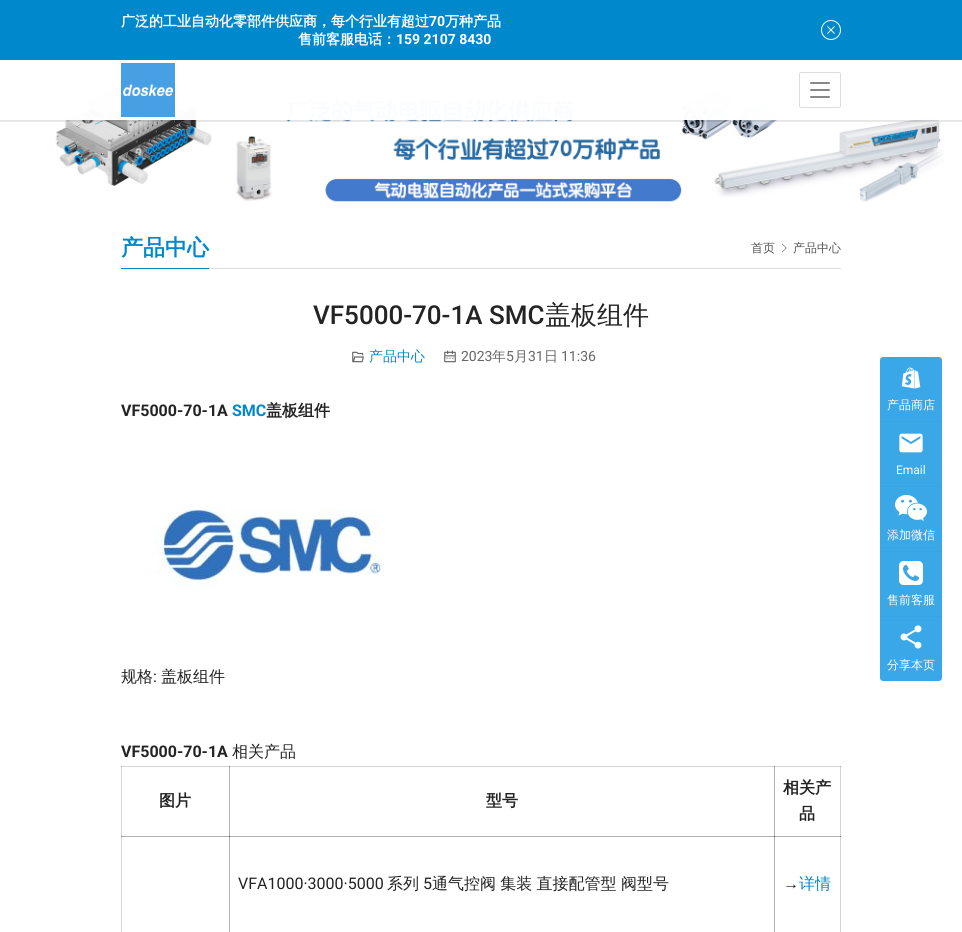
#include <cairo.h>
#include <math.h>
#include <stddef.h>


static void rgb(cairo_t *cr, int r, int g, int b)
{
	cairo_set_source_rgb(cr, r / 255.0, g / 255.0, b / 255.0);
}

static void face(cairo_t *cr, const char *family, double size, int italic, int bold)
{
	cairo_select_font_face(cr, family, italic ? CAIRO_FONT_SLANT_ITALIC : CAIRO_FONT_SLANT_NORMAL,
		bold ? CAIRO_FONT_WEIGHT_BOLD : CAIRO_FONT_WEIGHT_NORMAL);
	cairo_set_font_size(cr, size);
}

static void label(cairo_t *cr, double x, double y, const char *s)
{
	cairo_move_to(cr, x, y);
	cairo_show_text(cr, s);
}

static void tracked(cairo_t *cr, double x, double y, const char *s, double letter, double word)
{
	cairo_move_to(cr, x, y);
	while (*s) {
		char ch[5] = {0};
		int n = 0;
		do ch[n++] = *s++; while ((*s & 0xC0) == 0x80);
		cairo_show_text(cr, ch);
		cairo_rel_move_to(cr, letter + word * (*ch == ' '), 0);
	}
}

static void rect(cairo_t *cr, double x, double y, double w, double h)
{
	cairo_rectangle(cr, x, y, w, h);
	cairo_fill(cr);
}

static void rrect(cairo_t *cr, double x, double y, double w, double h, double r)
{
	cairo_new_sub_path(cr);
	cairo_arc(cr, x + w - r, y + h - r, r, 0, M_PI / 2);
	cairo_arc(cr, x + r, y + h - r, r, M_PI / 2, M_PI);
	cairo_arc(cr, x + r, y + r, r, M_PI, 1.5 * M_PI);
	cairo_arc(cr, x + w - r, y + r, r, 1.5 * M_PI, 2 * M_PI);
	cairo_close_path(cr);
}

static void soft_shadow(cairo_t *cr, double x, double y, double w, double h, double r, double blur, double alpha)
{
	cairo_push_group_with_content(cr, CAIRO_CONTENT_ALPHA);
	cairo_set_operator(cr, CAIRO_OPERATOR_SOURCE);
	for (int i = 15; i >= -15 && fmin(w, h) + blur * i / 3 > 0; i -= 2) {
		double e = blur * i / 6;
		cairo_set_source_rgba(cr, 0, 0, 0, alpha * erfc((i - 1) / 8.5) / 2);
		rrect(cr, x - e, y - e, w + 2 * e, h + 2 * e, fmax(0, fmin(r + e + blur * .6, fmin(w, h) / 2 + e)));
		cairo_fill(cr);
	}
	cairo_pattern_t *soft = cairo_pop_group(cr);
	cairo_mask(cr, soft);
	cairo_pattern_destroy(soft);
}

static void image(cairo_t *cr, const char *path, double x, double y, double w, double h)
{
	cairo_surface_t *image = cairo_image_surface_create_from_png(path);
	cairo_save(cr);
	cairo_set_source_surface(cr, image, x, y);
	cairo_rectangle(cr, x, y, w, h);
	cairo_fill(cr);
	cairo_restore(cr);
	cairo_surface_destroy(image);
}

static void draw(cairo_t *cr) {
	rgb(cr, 255, 255, 255);
	cairo_paint(cr);
	rgb(cr, 212, 212, 212);
	rect(cr, 121, 766, 1, 166);
	rect(cr, 121, 766, 109, 1);
	rgb(cr, 177, 177, 177);
	rect(cr, 121, 766, 1, 1);
	rect(cr, 229, 766, 1, 71);
	rgb(cr, 212, 212, 212);
	rect(cr, 229, 766, 546, 1);
	rgb(cr, 127, 127, 127);
	rect(cr, 229, 766, 1, 1);
	rgb(cr, 177, 177, 177);
	rect(cr, 774, 766, 1, 71);
	rgb(cr, 212, 212, 212);
	rect(cr, 840, 766, 1, 166);
	rgb(cr, 177, 177, 177);
	rect(cr, 121, 836, 109, 1);
	rgb(cr, 127, 127, 127);
	rect(cr, 121, 836, 1, 1);
	rgb(cr, 177, 177, 177);
	rect(cr, 229, 836, 1, 96);
	rect(cr, 229, 836, 546, 1);
	rgb(cr, 75, 75, 75);
	rect(cr, 229, 836, 1, 1);
	rgb(cr, 177, 177, 177);
	rect(cr, 774, 836, 1, 96);
	rgb(cr, 0, 136, 204);
	rect(cr, 0, 0, 962, 60);
	face(cr, "WenQuanYi Zen Hei", 14, 0, 1);
	rgb(cr, 255, 255, 255);
	label(cr, 121, 26, "广泛的工业自动化零部件供应商，每个行业有超过");
	face(cr, "Roboto", 14, 0, 1);
	label(cr, 429, 26, "70");
	face(cr, "WenQuanYi Zen Hei", 14, 0, 1);
	label(cr, 445, 26, "万种产品");
	label(cr, 298, 44, "售前客服电话：");
	face(cr, "Roboto", 14, 0, 1);
	label(cr, 396, 44, "159 2107 8430");
	cairo_new_path(cr);
	cairo_arc(cr, 831, 30, 9.5, 0, 2 * M_PI);
	cairo_set_line_width(cr, 1);
	cairo_stroke(cr);
	image(cr, "image0.png", 827, 26, 8, 8);
	image(cr, "image2.png", 55, 83, 889, 119);
	cairo_save(cr);
	cairo_rectangle(cr, 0, 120, 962, 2);
	cairo_clip(cr);
	rgb(cr, 0, 0, 0);
	soft_shadow(cr, -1, 60, 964, 62, 0, 0.5, 0.1);
	cairo_restore(cr);
	cairo_set_source_rgba(cr, 1, 1, 1, 0.98);
	rect(cr, 66, 83, 872, 37);
	image(cr, "image1.png", 121, 63, 54, 54);
	rrect(cr, 799.5, 72.5, 41, 35, 1.5);
	rgb(cr, 221, 221, 221);
	cairo_stroke(cr);
	rgb(cr, 136, 136, 136);
	rrect(cr, 810, 82, 20, 2, 1);
	cairo_fill(cr);
	rrect(cr, 810, 89, 20, 2, 1);
	cairo_fill(cr);
	rrect(cr, 810, 96, 20, 2, 1);
	cairo_fill(cr);
	rgb(cr, 221, 221, 221);
	rect(cr, 209, 268, 632, 1);
	rgb(cr, 0, 136, 204);
	rect(cr, 121, 268, 88, 1);
	face(cr, "WenQuanYi Zen Hei", 22, 0, 1);
	label(cr, 121, 255, "产品中心");
	face(cr, "WenQuanYi Zen Hei Medium", 12, 0, 0);
	rgb(cr, 81, 81, 81);
	label(cr, 751, 252, "首页");
	image(cr, "image3.png", 782, 243, 5, 10);
	label(cr, 793, 252, "产品中心");
	face(cr, "Roboto Medium", 26, 0, 0);
	rgb(cr, 35, 35, 35);
	label(cr, 313, 324, "VF5000-70-1A SMC");
	face(cr, "WenQuanYi Zen Hei Medium", 26, 0, 0);
	label(cr, 545, 324, "盖板组件");
	image(cr, "image4.png", 352, 351, 13, 12);
	face(cr, "WenQuanYi Zen Hei Medium", 14, 0, 0);
	rgb(cr, 0, 136, 204);
	label(cr, 369, 361, "产品中心");
	image(cr, "image5.png", 444, 350, 12, 13);
	face(cr, "Roboto", 14, 0, 0);
	rgb(cr, 102, 102, 102);
	label(cr, 461, 361, "2023");
	face(cr, "WenQuanYi Zen Hei Medium", 14, 0, 0);
	label(cr, 492, 361, "年");
	face(cr, "Roboto", 14, 0, 0);
	label(cr, 506, 361, "5");
	face(cr, "WenQuanYi Zen Hei Medium", 14, 0, 0);
	label(cr, 514, 361, "月");
	face(cr, "Roboto", 14, 0, 0);
	label(cr, 528, 361, "31");
	face(cr, "WenQuanYi Zen Hei Medium", 14, 0, 0);
	label(cr, 544, 361, "日");
	face(cr, "Roboto", 14, 0, 0);
	label(cr, 561, 361, "11:36");
	face(cr, "Roboto", 16, 0, 1);
	rgb(cr, 35, 35, 35);
	label(cr, 121, 416, "VF5000-70-1A");
	rgb(cr, 0, 136, 204);
	label(cr, 232, 416, "SMC");
	face(cr, "WenQuanYi Zen Hei", 16, 0, 1);
	rgb(cr, 35, 35, 35);
	label(cr, 266, 416, "盖板组件");
	image(cr, "image6.png", 153, 509, 233, 81);
	face(cr, "WenQuanYi Zen Hei Medium", 16, 0, 0);
	label(cr, 121, 682, "规格");
	face(cr, "Roboto", 16, 0, 0);
	label(cr, 153, 682, ":");
	face(cr, "WenQuanYi Zen Hei Medium", 16, 0, 0);
	label(cr, 161, 682, "盖板组件");
	face(cr, "Roboto", 16, 0, 1);
	label(cr, 121, 757, "VF5000-70-1A");
	face(cr, "WenQuanYi Zen Hei Medium", 16, 0, 0);
	label(cr, 232, 757, "相关产品");
	face(cr, "WenQuanYi Zen Hei", 16, 0, 1);
	label(cr, 159, 806, "图片");
	label(cr, 486, 806, "型号");
	rgb(cr, 212, 212, 212);
	rect(cr, 774, 766, 67, 1);
	rgb(cr, 127, 127, 127);
	rect(cr, 774, 766, 1, 1);
	rgb(cr, 177, 177, 177);
	rect(cr, 840, 766, 1, 1);
	rgb(cr, 35, 35, 35);
	label(cr, 783, 793, "相关产");
	label(cr, 799, 819, "品");
	face(cr, "Roboto", 16, 0, 0);
	label(cr, 238, 889, "VFA1000·3000·5000");
	face(cr, "WenQuanYi Zen Hei Medium", 16, 0, 0);
	label(cr, 387, 889, "系列");
	face(cr, "Roboto", 16, 0, 0);
	label(cr, 423, 889, "5");
	face(cr, "WenQuanYi Zen Hei Medium", 16, 0, 0);
	tracked(cr, 432, 889, "通气控阀 集装 直接配管型 阀型号", 0, -0.5);
	rgb(cr, 177, 177, 177);
	rect(cr, 774, 836, 67, 1);
	rgb(cr, 75, 75, 75);
	rect(cr, 774, 836, 1, 1);
	rgb(cr, 127, 127, 127);
	rect(cr, 840, 836, 1, 1);
	face(cr, "Liberation Sans", 16, 0, 0);
	rgb(cr, 35, 35, 35);
	label(cr, 783, 889, "→");
	face(cr, "WenQuanYi Zen Hei Medium", 16, 0, 0);
	rgb(cr, 0, 136, 204);
	label(cr, 799, 889, "详情");
	rgb(cr, 60, 177, 246);
	cairo_new_path(cr);
	cairo_move_to(cr, 883, 357);
	cairo_line_to(cr, 939, 357);
	cairo_curve_to(cr, 940.5, 357, 942, 358.5, 942, 360);
	cairo_line_to(cr, 942, 421);
	cairo_line_to(cr, 880, 421);
	cairo_line_to(cr, 880, 360);
	cairo_curve_to(cr, 880, 358.5, 881.5, 357, 883, 357);
	cairo_close_path(cr);
	cairo_fill(cr);
	cairo_set_source_rgba(cr, 0.149, 0.149, 0.149, 0.07);
	cairo_new_path(cr);
	cairo_move_to(cr, 883, 357);
	cairo_line_to(cr, 939, 357);
	cairo_curve_to(cr, 940.5, 357, 942, 358.5, 942, 360);
	cairo_line_to(cr, 942, 421);
	cairo_line_to(cr, 880, 421);
	cairo_line_to(cr, 880, 360);
	cairo_curve_to(cr, 880, 358.5, 881.5, 357, 883, 357);
	cairo_close_path(cr);
	cairo_fill(cr);
	image(cr, "image7.png", 901, 367, 20, 22);
	face(cr, "WenQuanYi Zen Hei Medium", 12, 0, 0);
	rgb(cr, 255, 255, 255);
	label(cr, 887, 409, "产品商店");
	rgb(cr, 58, 163, 225);
	rect(cr, 880, 421, 62, 1);
	rgb(cr, 58, 167, 231);
	rect(cr, 880, 422, 62, 64);
	image(cr, "image8.png", 899, 433, 24, 20);
	face(cr, "Roboto", 12, 0, 0);
	rgb(cr, 255, 255, 255);
	label(cr, 896, 474, "Email");
	rgb(cr, 58, 163, 225);
	rect(cr, 880, 486, 62, 1);
	rgb(cr, 58, 167, 231);
	rect(cr, 880, 487, 62, 64);
	image(cr, "image9.png", 895, 495, 32, 26);
	face(cr, "WenQuanYi Zen Hei Medium", 12, 0, 0);
	rgb(cr, 255, 255, 255);
	label(cr, 887, 539, "添加微信");
	rgb(cr, 58, 163, 225);
	rect(cr, 880, 551, 62, 1);
	rgb(cr, 58, 167, 231);
	rect(cr, 880, 552, 62, 64);
	image(cr, "image10.png", 899, 561, 24, 24);
	rgb(cr, 255, 255, 255);
	label(cr, 887, 604, "售前客服");
	rgb(cr, 60, 177, 246);
	cairo_new_path(cr);
	cairo_move_to(cr, 880, 616);
	cairo_line_to(cr, 942, 616);
	cairo_line_to(cr, 942, 678);
	cairo_curve_to(cr, 942, 679.5, 940.5, 681, 939, 681);
	cairo_line_to(cr, 883, 681);
	cairo_curve_to(cr, 881.5, 681, 880, 679.5, 880, 678);
	cairo_close_path(cr);
	cairo_fill(cr);
	rgb(cr, 58, 163, 225);
	rect(cr, 880, 616, 62, 1);
	cairo_set_source_rgba(cr, 0.149, 0.149, 0.149, 0.07);
	cairo_new_path(cr);
	cairo_move_to(cr, 880, 617);
	cairo_line_to(cr, 942, 617);
	cairo_line_to(cr, 942, 678);
	cairo_curve_to(cr, 942, 679.5, 940.5, 681, 939, 681);
	cairo_line_to(cr, 883, 681);
	cairo_curve_to(cr, 881.5, 681, 880, 679.5, 880, 678);
	cairo_close_path(cr);
	cairo_fill(cr);
	image(cr, "image11.png", 900, 625, 22, 24);
	rgb(cr, 255, 255, 255);
	label(cr, 887, 669, "分享本页");
}

int main(void) {
	cairo_surface_t *surface = cairo_image_surface_create(CAIRO_FORMAT_RGB24, 962, 932);
	cairo_t *cr = cairo_create(surface);
	cairo_font_options_t *options = cairo_font_options_create();
	cairo_font_options_set_hint_metrics(options, CAIRO_HINT_METRICS_OFF);
	cairo_font_options_set_hint_style(options, CAIRO_HINT_STYLE_NONE);
	cairo_set_font_options(cr, options);
	cairo_set_miter_limit(cr, 4);
	draw(cr);
	cairo_surface_write_to_png(surface, "render.png");
	cairo_font_options_destroy(options);
	cairo_destroy(cr);
	cairo_surface_destroy(surface);
	return 0;
}
